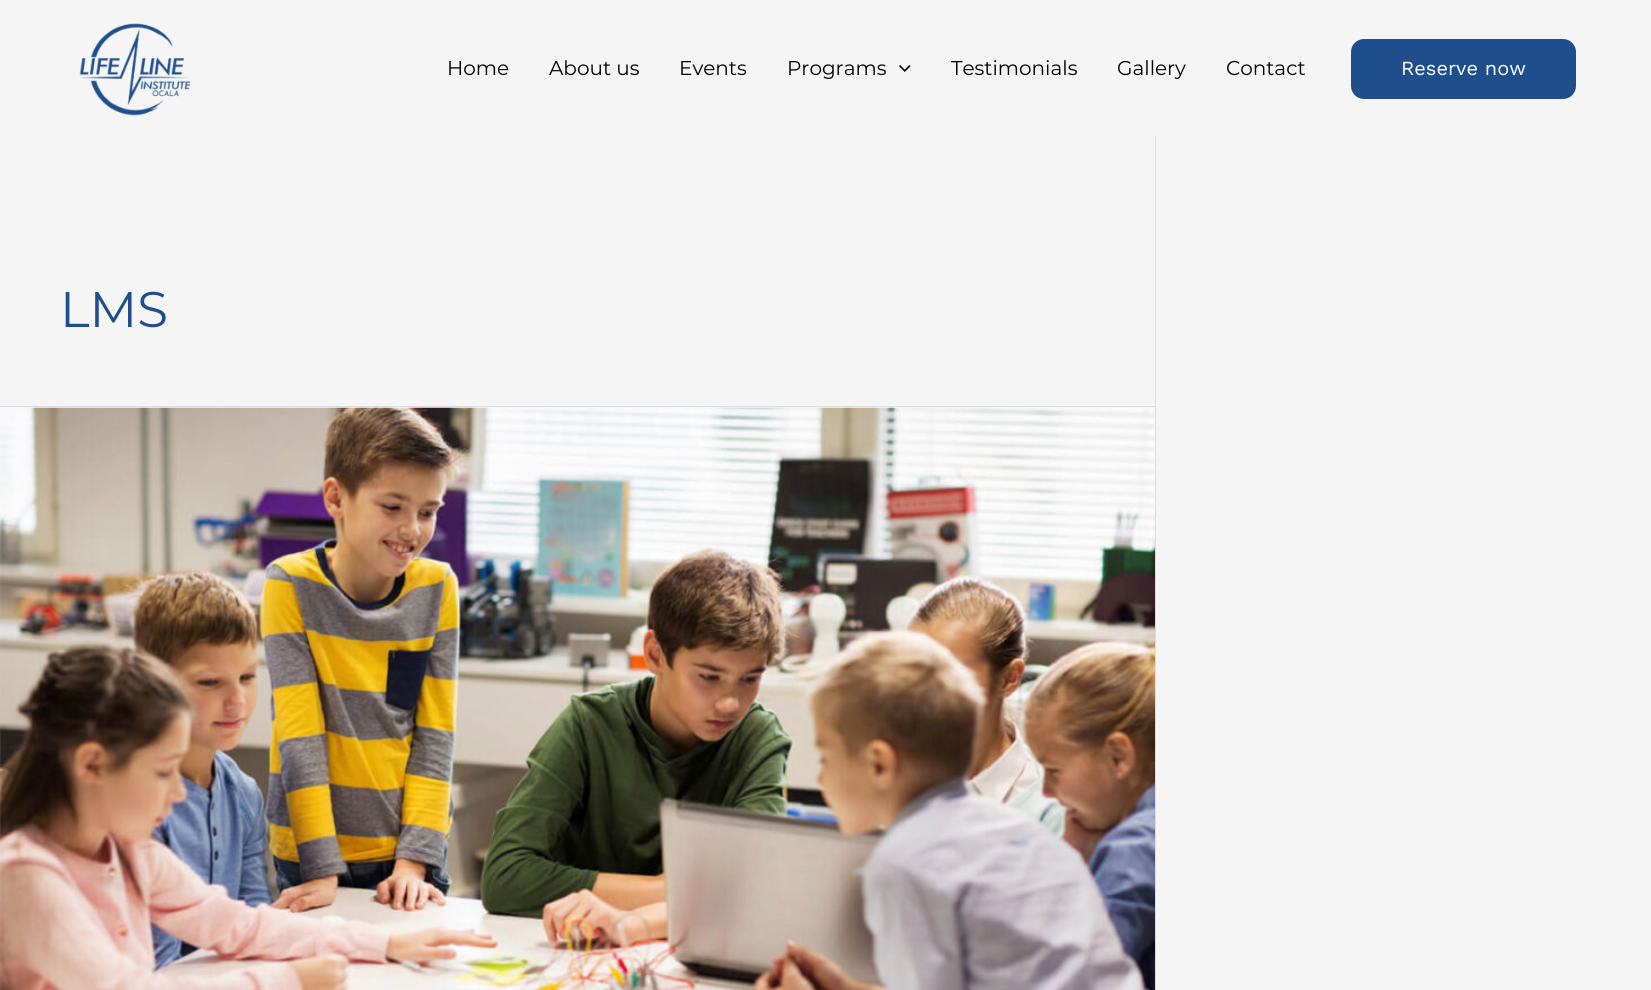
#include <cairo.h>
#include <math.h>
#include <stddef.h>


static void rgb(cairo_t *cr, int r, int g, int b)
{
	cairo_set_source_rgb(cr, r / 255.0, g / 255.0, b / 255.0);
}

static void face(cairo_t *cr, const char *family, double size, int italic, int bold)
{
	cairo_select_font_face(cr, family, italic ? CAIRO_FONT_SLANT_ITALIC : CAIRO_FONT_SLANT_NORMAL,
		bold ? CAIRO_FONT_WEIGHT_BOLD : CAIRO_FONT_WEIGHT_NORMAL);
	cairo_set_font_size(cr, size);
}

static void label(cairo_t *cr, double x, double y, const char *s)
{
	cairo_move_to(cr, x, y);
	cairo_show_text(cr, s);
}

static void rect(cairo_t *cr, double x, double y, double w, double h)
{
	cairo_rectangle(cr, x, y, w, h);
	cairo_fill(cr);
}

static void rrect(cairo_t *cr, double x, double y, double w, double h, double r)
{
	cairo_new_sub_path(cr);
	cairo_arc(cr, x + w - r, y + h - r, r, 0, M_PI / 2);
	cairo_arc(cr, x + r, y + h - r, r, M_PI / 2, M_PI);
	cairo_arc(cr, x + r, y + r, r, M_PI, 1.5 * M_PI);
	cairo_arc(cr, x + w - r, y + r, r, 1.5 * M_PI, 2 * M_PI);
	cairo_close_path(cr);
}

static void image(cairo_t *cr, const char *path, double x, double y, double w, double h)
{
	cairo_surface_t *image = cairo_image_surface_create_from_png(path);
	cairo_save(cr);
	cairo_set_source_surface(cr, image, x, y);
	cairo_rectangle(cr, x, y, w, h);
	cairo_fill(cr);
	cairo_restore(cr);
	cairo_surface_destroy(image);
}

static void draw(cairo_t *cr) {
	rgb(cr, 245, 245, 245);
	cairo_paint(cr);
	image(cr, "image0.png", 79, 23, 112, 93);
	face(cr, "Montserrat", 20, 0, 0);
	rgb(cr, 0, 0, 0);
	label(cr, 447, 75, "Home");
	label(cr, 549, 75, "About us");
	label(cr, 679, 75, "Events");
	label(cr, 787, 75, "Programs");
	image(cr, "image1.png", 899, 65, 12, 7);
	label(cr, 951, 75, "Testimonials");
	label(cr, 1117, 75, "Gallery");
	label(cr, 1226, 75, "Contact");
	rgb(cr, 30, 78, 140);
	rrect(cr, 1351, 39, 225, 60, 13);
	cairo_fill(cr);
	face(cr, "Work Sans", 20, 0, 0);
	rgb(cr, 255, 255, 255);
	label(cr, 1401, 75, "Reserve now");
	rgb(cr, 221, 221, 221);
	rect(cr, 1155, 136, 1, 854);
	rect(cr, 0, 406, 1155, 1);
	face(cr, "Montserrat", 50, 0, 0);
	rgb(cr, 30, 78, 140);
	label(cr, 60, 327, "LMS");
	image(cr, "image2.png", 0, 407, 1155, 583);
}

int main(void) {
	cairo_surface_t *surface = cairo_image_surface_create(CAIRO_FORMAT_RGB24, 1651, 990);
	cairo_t *cr = cairo_create(surface);
	cairo_font_options_t *options = cairo_font_options_create();
	cairo_font_options_set_hint_metrics(options, CAIRO_HINT_METRICS_OFF);
	cairo_font_options_set_hint_style(options, CAIRO_HINT_STYLE_NONE);
	cairo_set_font_options(cr, options);
	cairo_set_miter_limit(cr, 4);
	draw(cr);
	cairo_surface_write_to_png(surface, "render.png");
	cairo_font_options_destroy(options);
	cairo_destroy(cr);
	cairo_surface_destroy(surface);
	return 0;
}
